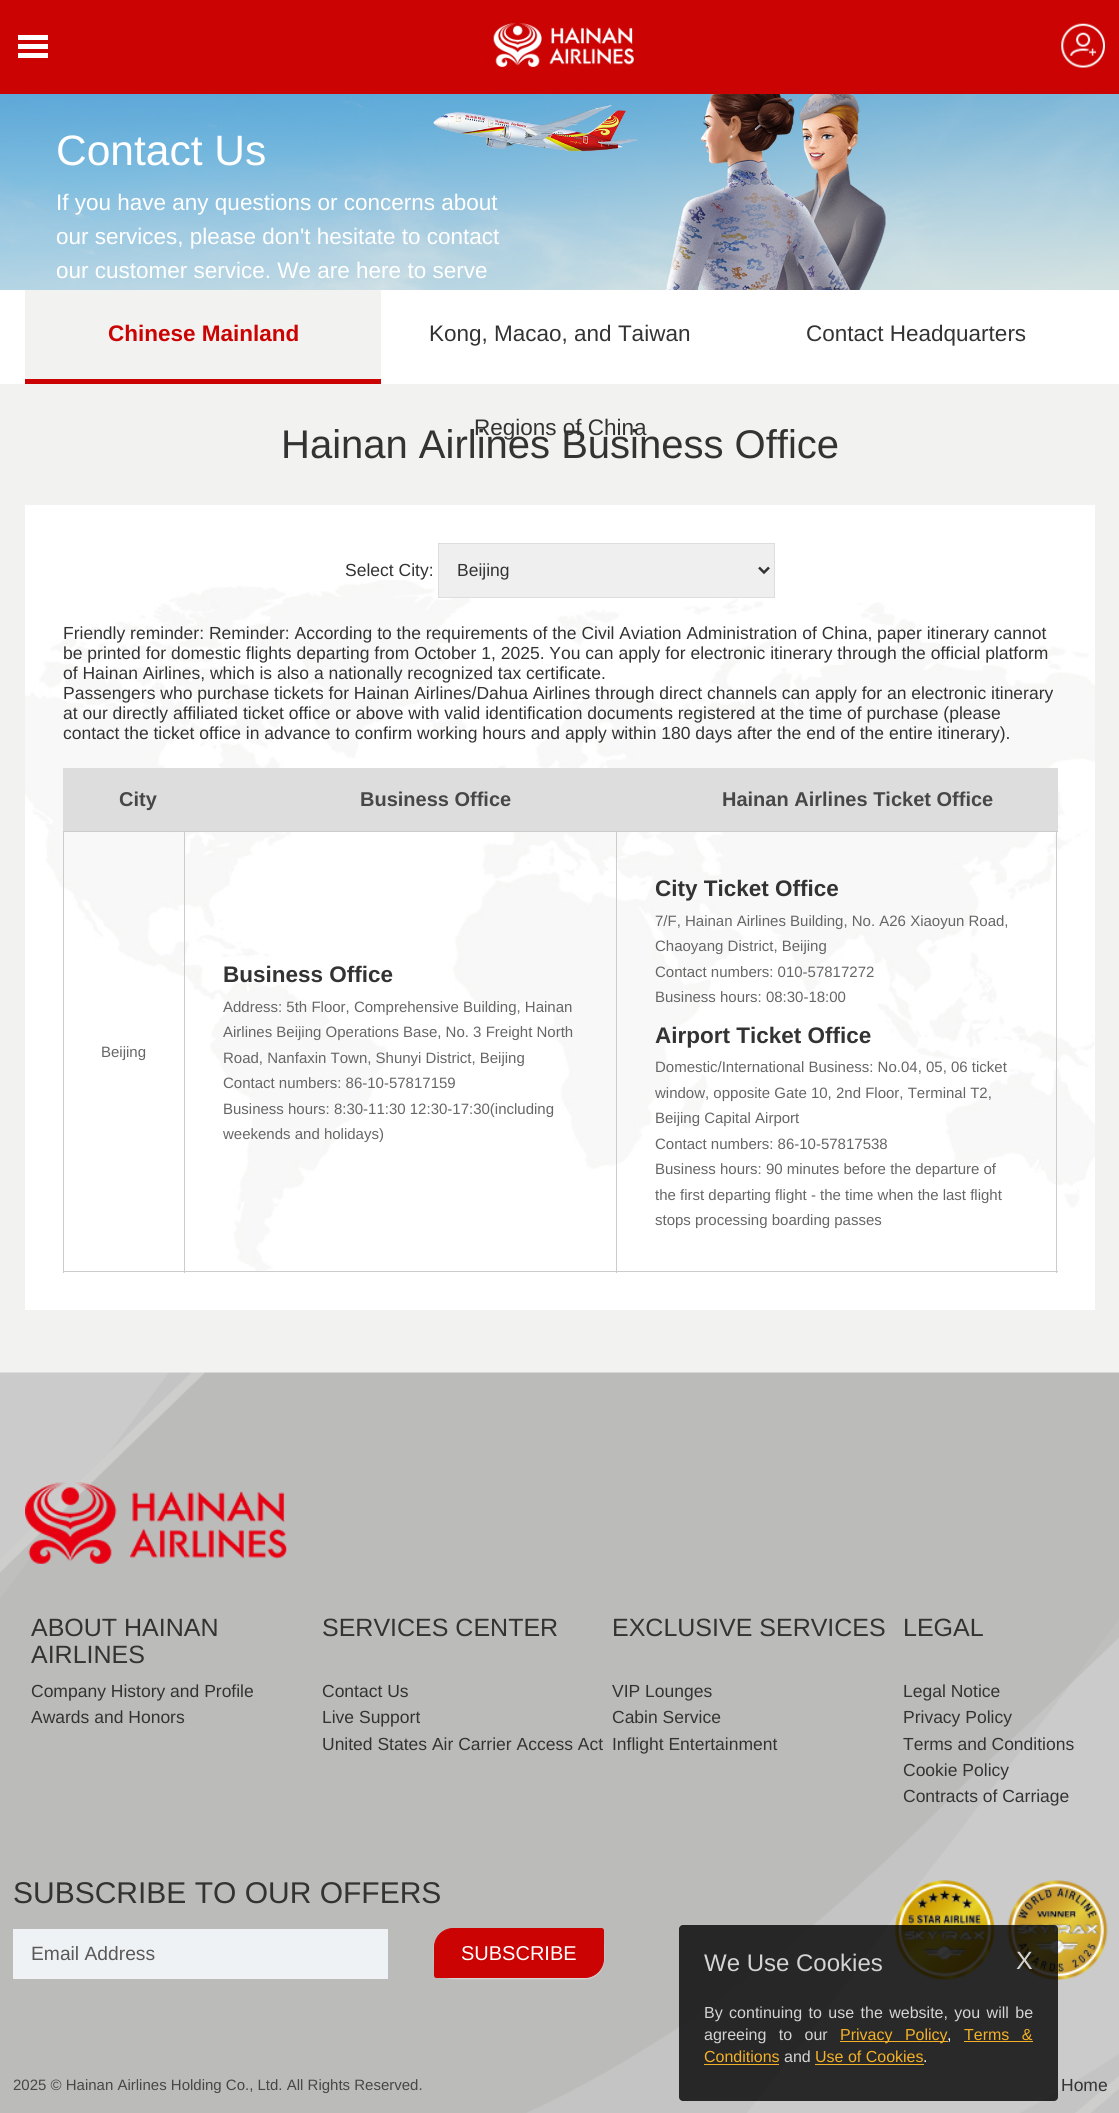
#include <cairo.h>
#include <math.h>
#include <stddef.h>


static void rgb(cairo_t *cr, int r, int g, int b)
{
	cairo_set_source_rgb(cr, r / 255.0, g / 255.0, b / 255.0);
}

static void face(cairo_t *cr, const char *family, double size, int italic, int bold)
{
	cairo_select_font_face(cr, family, italic ? CAIRO_FONT_SLANT_ITALIC : CAIRO_FONT_SLANT_NORMAL,
		bold ? CAIRO_FONT_WEIGHT_BOLD : CAIRO_FONT_WEIGHT_NORMAL);
	cairo_set_font_size(cr, size);
}

static void label(cairo_t *cr, double x, double y, const char *s)
{
	cairo_move_to(cr, x, y);
	cairo_show_text(cr, s);
}

static void tracked(cairo_t *cr, double x, double y, const char *s, double letter, double word)
{
	cairo_move_to(cr, x, y);
	while (*s) {
		char ch[5] = {0};
		int n = 0;
		do ch[n++] = *s++; while ((*s & 0xC0) == 0x80);
		cairo_show_text(cr, ch);
		cairo_rel_move_to(cr, letter + word * (*ch == ' '), 0);
	}
}

static void rect(cairo_t *cr, double x, double y, double w, double h)
{
	cairo_rectangle(cr, x, y, w, h);
	cairo_fill(cr);
}

static void rrect(cairo_t *cr, double x, double y, double w, double h, double r)
{
	cairo_new_sub_path(cr);
	cairo_arc(cr, x + w - r, y + h - r, r, 0, M_PI / 2);
	cairo_arc(cr, x + r, y + h - r, r, M_PI / 2, M_PI);
	cairo_arc(cr, x + r, y + r, r, M_PI, 1.5 * M_PI);
	cairo_arc(cr, x + w - r, y + r, r, 1.5 * M_PI, 2 * M_PI);
	cairo_close_path(cr);
}

static void soft_shadow(cairo_t *cr, double x, double y, double w, double h, double r, double blur, double alpha)
{
	cairo_push_group_with_content(cr, CAIRO_CONTENT_ALPHA);
	cairo_set_operator(cr, CAIRO_OPERATOR_SOURCE);
	for (int i = 15; i >= -15 && fmin(w, h) + blur * i / 3 > 0; i -= 2) {
		double e = blur * i / 6;
		cairo_set_source_rgba(cr, 0, 0, 0, alpha * erfc((i - 1) / 8.5) / 2);
		rrect(cr, x - e, y - e, w + 2 * e, h + 2 * e, fmax(0, fmin(r + e + blur * .6, fmin(w, h) / 2 + e)));
		cairo_fill(cr);
	}
	cairo_pattern_t *soft = cairo_pop_group(cr);
	cairo_mask(cr, soft);
	cairo_pattern_destroy(soft);
}

static void image(cairo_t *cr, const char *path, double x, double y, double w, double h)
{
	cairo_surface_t *image = cairo_image_surface_create_from_png(path);
	cairo_save(cr);
	cairo_set_source_surface(cr, image, x, y);
	cairo_rectangle(cr, x, y, w, h);
	cairo_fill(cr);
	cairo_restore(cr);
	cairo_surface_destroy(image);
}

static void draw(cairo_t *cr) {
	rgb(cr, 242, 242, 240);
	cairo_paint(cr);
	rgb(cr, 203, 3, 3);
	rect(cr, 0, 0, 1119, 94);
	rgb(cr, 255, 255, 255);
	rect(cr, 18, 35, 30, 5);
	rect(cr, 18, 44, 30, 5);
	rect(cr, 18, 53, 30, 5);
	image(cr, "image0.png", 493, 23, 141, 44);
	image(cr, "image1.png", 1061, 23, 44, 45);
	image(cr, "image2.png", 0, 94, 1119, 196);
	face(cr, "Liberation Sans", 42.5, 0, 0);
	label(cr, 56, 165, "Contact Us");
	face(cr, "Liberation Sans", 22.5, 0, 0);
	label(cr, 56, 210, "If you have any questions or concerns about");
	label(cr, 56, 244, "our services, please don't hesitate to contact");
	label(cr, 56, 278, "our customer service. We are here to serve");
	rect(cr, 0, 290, 1119, 94);
	rgb(cr, 242, 242, 240);
	rect(cr, 25, 290, 356, 89);
	rgb(cr, 203, 4, 3);
	rect(cr, 25, 379, 356, 5);
	face(cr, "Liberation Sans", 22.5, 0, 1);
	label(cr, 108, 341, "Chinese Mainland");
	face(cr, "Liberation Sans", 22.5, 0, 0);
	rgb(cr, 51, 51, 51);
	label(cr, 429, 341, "Kong, Macao, and Taiwan");
	label(cr, 474, 435, "Regions of China");
	label(cr, 806, 341, "Contact Headquarters");
	face(cr, "Liberation Sans", 40, 0, 0);
	label(cr, 281, 458, "Hainan Airlines Business Office");
	rgb(cr, 255, 255, 255);
	rect(cr, 25, 505, 1070, 805);
	image(cr, "image3.png", 25, 580, 1070, 691);
	face(cr, "Liberation Sans", 17.5, 0, 0);
	rgb(cr, 51, 51, 51);
	label(cr, 345, 576, "Select City:");
	rgb(cr, 239, 239, 239);
	cairo_rectangle(cr, 438.5, 543.5, 336, 54);
	cairo_fill_preserve(cr);
	rgb(cr, 221, 221, 221);
	cairo_set_line_width(cr, 1);
	cairo_stroke(cr);
	cairo_new_path(cr);
	cairo_move_to(cr, 759, 567.5);
	cairo_line_to(cr, 764, 572.5);
	cairo_line_to(cr, 769, 567.5);
	rgb(cr, 51, 51, 51);
	cairo_set_line_width(cr, 2.5);
	cairo_stroke(cr);
	label(cr, 457, 576, "Beijing");
	label(cr, 63, 639, "Friendly reminder: Reminder: According to the requirements of the Civil Aviation Administration of China, paper itinerary cannot");
	label(cr, 63, 659, "be printed for domestic flights departing from October 1, 2025. You can apply for electronic itinerary through the official platform");
	label(cr, 63, 679, "of Hainan Airlines, which is also a nationally recognized tax certificate.");
	label(cr, 63, 699, "Passengers who purchase tickets for Hainan Airlines/Dahua Airlines through direct channels can apply for an electronic itinerary");
	label(cr, 63, 719, "at our directly affiliated ticket office or above with valid identification documents registered at the time of purchase (please");
	label(cr, 63, 739, "contact the ticket office in advance to confirm working hours and apply within 180 days after the end of the entire itinerary).");
	rgb(cr, 221, 221, 221);
	rect(cr, 63, 768, 995, 1);
	rect(cr, 63, 830, 995, 1);
	rect(cr, 63, 768, 1, 63);
	rect(cr, 64, 769, 994, 61);
	face(cr, "Liberation Sans", 20, 0, 1);
	rgb(cr, 71, 71, 71);
	label(cr, 119, 806, "City");
	label(cr, 360, 806, "Business Office");
	label(cr, 722, 806, "Hainan Airlines Ticket Office");
	rgb(cr, 204, 204, 204);
	rect(cr, 616, 831, 442, 1);
	rect(cr, 1056, 831, 1, 442);
	rect(cr, 616, 1271, 442, 1);
	rect(cr, 616, 831, 1, 442);
	rect(cr, 184, 831, 434, 1);
	rect(cr, 184, 1271, 434, 1);
	rect(cr, 184, 831, 1, 442);
	rect(cr, 63, 831, 122, 1);
	rect(cr, 63, 1271, 122, 1);
	rect(cr, 63, 831, 1, 442);
	face(cr, "Liberation Sans", 15, 0, 0);
	rgb(cr, 102, 102, 102);
	label(cr, 101, 1057, "Beijing");
	face(cr, "Liberation Sans", 22.5, 0, 1);
	rgb(cr, 51, 51, 51);
	label(cr, 223, 982, "Business Office");
	face(cr, "Liberation Sans", 15, 0, 0);
	rgb(cr, 102, 102, 102);
	label(cr, 223, 1012, "Address: 5th Floor, Comprehensive Building, Hainan");
	label(cr, 223, 1037, "Airlines Beijing Operations Base, No. 3 Freight North");
	label(cr, 223, 1063, "Road, Nanfaxin Town, Shunyi District, Beijing");
	label(cr, 223, 1088, "Contact numbers: 86-10-57817159");
	label(cr, 223, 1114, "Business hours: 8:30-11:30 12:30-17:30(including");
	label(cr, 223, 1139, "weekends and holidays)");
	face(cr, "Liberation Sans", 22.5, 0, 1);
	rgb(cr, 51, 51, 51);
	label(cr, 655, 896, "City Ticket Office");
	face(cr, "Liberation Sans", 15, 0, 0);
	rgb(cr, 102, 102, 102);
	label(cr, 655, 926, "7/F, Hainan Airlines Building, No. A26 Xiaoyun Road,");
	label(cr, 655, 951, "Chaoyang District, Beijing");
	label(cr, 655, 977, "Contact numbers: 010-57817272");
	label(cr, 655, 1002, "Business hours: 08:30-18:00");
	face(cr, "Liberation Sans", 22.5, 0, 1);
	rgb(cr, 51, 51, 51);
	label(cr, 655, 1043, "Airport Ticket Office");
	face(cr, "Liberation Sans", 15, 0, 0);
	rgb(cr, 102, 102, 102);
	label(cr, 655, 1072, "Domestic/International Business: No.04, 05, 06 ticket");
	label(cr, 655, 1098, "window, opposite Gate 10, 2nd Floor, Terminal T2,");
	label(cr, 655, 1123, "Beijing Capital Airport");
	label(cr, 655, 1149, "Contact numbers: 86-10-57817538");
	label(cr, 655, 1174, "Business hours: 90 minutes before the departure of");
	label(cr, 655, 1200, "the first departing flight - the time when the last flight");
	label(cr, 655, 1225, "stops processing boarding passes");
	image(cr, "image4.png", 0, 1372, 1119, 741);
	image(cr, "image5.png", 25, 1482, 262, 82);
	face(cr, "Liberation Sans", 25, 0, 0);
	rgb(cr, 51, 51, 51);
	label(cr, 31, 1636, "ABOUT HAINAN");
	label(cr, 31, 1663, "AIRLINES");
	face(cr, "Liberation Sans", 17.5, 0, 0);
	label(cr, 31, 1697, "Company History and Profile");
	label(cr, 31, 1723, "Awards and Honors");
	face(cr, "Liberation Sans", 25, 0, 0);
	label(cr, 322, 1636, "SERVICES CENTER");
	face(cr, "Liberation Sans", 17.5, 0, 0);
	label(cr, 322, 1697, "Contact Us");
	label(cr, 322, 1723, "Live Support");
	label(cr, 322, 1750, "United States Air Carrier Access Act");
	face(cr, "Liberation Sans", 25, 0, 0);
	label(cr, 612, 1636, "EXCLUSIVE SERVICES");
	face(cr, "Liberation Sans", 17.5, 0, 0);
	label(cr, 612, 1697, "VIP Lounges");
	label(cr, 612, 1723, "Cabin Service");
	label(cr, 612, 1750, "Inflight Entertainment");
	face(cr, "Liberation Sans", 25, 0, 0);
	label(cr, 903, 1636, "LEGAL");
	face(cr, "Liberation Sans", 17.5, 0, 0);
	label(cr, 903, 1697, "Legal Notice");
	label(cr, 903, 1723, "Privacy Policy");
	label(cr, 903, 1750, "Terms and Conditions");
	label(cr, 903, 1776, "Cookie Policy");
	label(cr, 903, 1802, "Contracts of Carriage");
	face(cr, "Liberation Sans", 30, 0, 0);
	label(cr, 13, 1903, "SUBSCRIBE TO OUR OFFERS");
	rgb(cr, 239, 242, 244);
	rect(cr, 13, 1929, 375, 50);
	face(cr, "Liberation Sans", 19.25, 0, 0);
	rgb(cr, 90, 89, 89);
	label(cr, 31, 1960, "Email Address");
	rgb(cr, 217, 217, 217);
	soft_shadow(cr, 434, 1929, 170, 50, 19, 0.5, 1);
	rgb(cr, 203, 3, 3);
	cairo_new_path(cr);
	cairo_move_to(cr, 453, 1928.5);
	cairo_line_to(cr, 601.5, 1928.5);
	cairo_curve_to(cr, 602.5, 1928.5, 603.5, 1929.5, 603.5, 1930.5);
	cairo_line_to(cr, 603.5, 1959);
	cairo_curve_to(cr, 603.5, 1969, 595, 1977.5, 585, 1977.5);
	cairo_line_to(cr, 436.5, 1977.5);
	cairo_curve_to(cr, 435.5, 1977.5, 434.5, 1976.5, 434.5, 1975.5);
	cairo_line_to(cr, 434.5, 1947);
	cairo_curve_to(cr, 434.5, 1937, 443, 1928.5, 453, 1928.5);
	cairo_close_path(cr);
	cairo_fill_preserve(cr);
	cairo_set_line_width(cr, 1);
	cairo_stroke(cr);
	face(cr, "Liberation Sans", 20, 0, 0);
	rgb(cr, 255, 255, 255);
	label(cr, 461, 1960, "SUBSCRIBE");
	image(cr, "image6.png", 895, 1880, 100, 100);
	image(cr, "image7.png", 1007, 1880, 101, 100);
	face(cr, "Liberation Sans", 15, 0, 0);
	rgb(cr, 71, 71, 71);
	label(cr, 13, 2090, "2025 © Hainan Airlines Holding Co., Ltd. All Rights Reserved.");
	face(cr, "Liberation Sans", 17.5, 0, 0);
	rgb(cr, 51, 51, 51);
	label(cr, 1061, 2091, "Home");
	cairo_set_source_rgba(cr, 0, 0, 0, 0.8);
	rrect(cr, 679, 1925, 379, 176, 4);
	cairo_fill(cr);
	face(cr, "Liberation Sans", 24, 0, 0);
	rgb(cr, 212, 212, 212);
	label(cr, 704, 1971, "We Use Cookies");
	face(cr, "Liberation Sans", 25, 0, 0);
	label(cr, 1016, 1969, "X");
	face(cr, "Liberation Sans", 16, 0, 0);
	tracked(cr, 704, 2018, "By continuing to use the website, you will be", 0, 2);
	tracked(cr, 704, 2040, "agreeing to our", 0, 8);
	rgb(cr, 244, 176, 40);
	rect(cr, 840, 2041, 108, 1);
	tracked(cr, 840, 2040, "Privacy Policy", 0, 8);
	rgb(cr, 244, 245, 244);
	label(cr, 947, 2040, ",");
	rgb(cr, 244, 176, 40);
	tracked(cr, 964, 2040, "Terms &", 0, 8);
	rect(cr, 964, 2041, 69, 1);
	label(cr, 704, 2062, "Conditions");
	rgb(cr, 243, 174, 39);
	rect(cr, 704, 2064, 75, 1);
	rgb(cr, 212, 212, 212);
	label(cr, 784, 2062, "and");
	rgb(cr, 244, 176, 40);
	label(cr, 815, 2062, "Use of Cookies");
	rect(cr, 815, 2064, 109, 1);
	rgb(cr, 244, 245, 244);
	label(cr, 923, 2062, ".");
}

int main(void) {
	cairo_surface_t *surface = cairo_image_surface_create(CAIRO_FORMAT_RGB24, 1119, 2113);
	cairo_t *cr = cairo_create(surface);
	cairo_font_options_t *options = cairo_font_options_create();
	cairo_font_options_set_hint_metrics(options, CAIRO_HINT_METRICS_OFF);
	cairo_font_options_set_hint_style(options, CAIRO_HINT_STYLE_NONE);
	cairo_set_font_options(cr, options);
	cairo_set_miter_limit(cr, 4);
	draw(cr);
	cairo_surface_write_to_png(surface, "render.png");
	cairo_font_options_destroy(options);
	cairo_destroy(cr);
	cairo_surface_destroy(surface);
	return 0;
}
